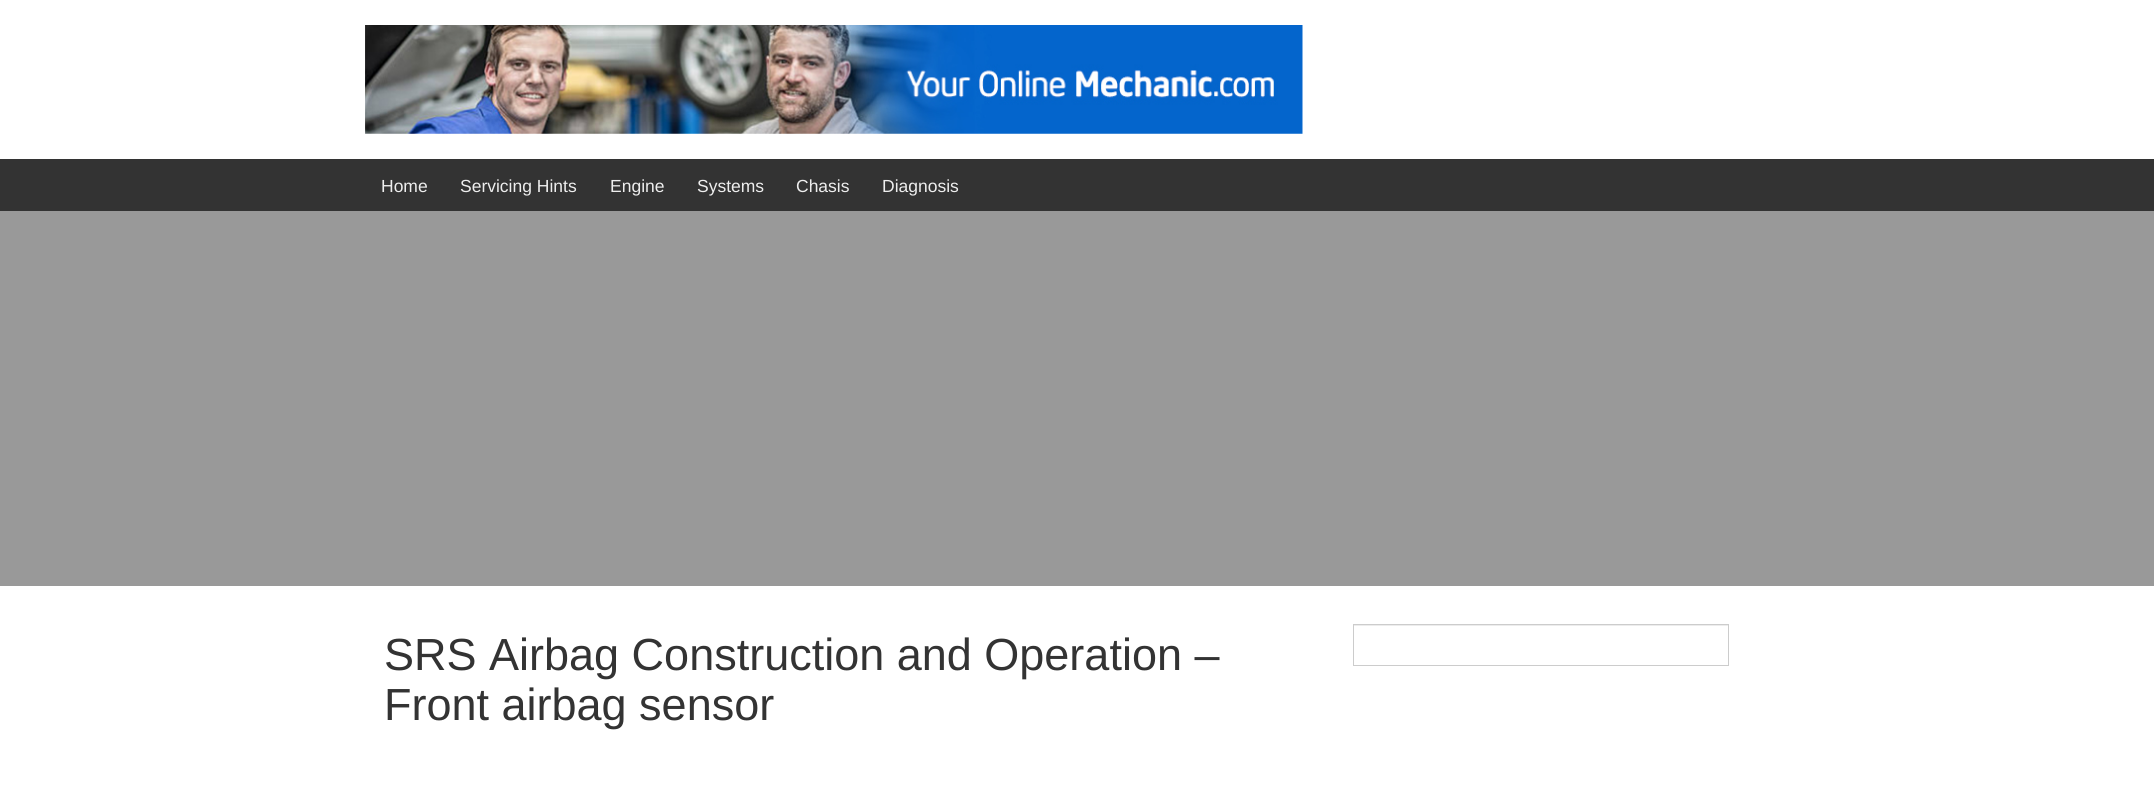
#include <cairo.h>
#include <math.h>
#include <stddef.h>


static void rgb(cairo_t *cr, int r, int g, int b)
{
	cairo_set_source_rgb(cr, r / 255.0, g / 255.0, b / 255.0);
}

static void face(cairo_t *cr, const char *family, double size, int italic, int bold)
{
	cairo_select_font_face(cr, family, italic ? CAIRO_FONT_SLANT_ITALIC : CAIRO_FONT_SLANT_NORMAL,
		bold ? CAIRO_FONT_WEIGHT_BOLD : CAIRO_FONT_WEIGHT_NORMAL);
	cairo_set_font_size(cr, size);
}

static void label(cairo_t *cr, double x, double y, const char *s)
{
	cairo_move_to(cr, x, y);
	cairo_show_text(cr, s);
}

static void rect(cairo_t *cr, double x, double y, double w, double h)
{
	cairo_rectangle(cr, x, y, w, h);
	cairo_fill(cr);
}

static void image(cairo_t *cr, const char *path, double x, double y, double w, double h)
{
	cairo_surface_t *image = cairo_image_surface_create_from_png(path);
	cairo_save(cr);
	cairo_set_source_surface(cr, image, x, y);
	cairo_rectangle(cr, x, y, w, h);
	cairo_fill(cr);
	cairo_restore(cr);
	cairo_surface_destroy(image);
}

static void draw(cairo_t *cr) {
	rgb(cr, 255, 255, 255);
	cairo_paint(cr);
	image(cr, "image0.png", 365, 25, 938, 109);
	rgb(cr, 51, 51, 51);
	rect(cr, 0, 159, 2154, 52);
	face(cr, "Liberation Sans", 17.5, 0, 0);
	rgb(cr, 238, 238, 238);
	label(cr, 381, 192, "Home");
	label(cr, 460, 192, "Servicing Hints");
	label(cr, 610, 192, "Engine");
	label(cr, 697, 192, "Systems");
	label(cr, 796, 192, "Chasis");
	label(cr, 882, 192, "Diagnosis");
	rgb(cr, 153, 153, 153);
	rect(cr, 0, 211, 2154, 375);
	face(cr, "Liberation Sans", 45, 0, 0);
	rgb(cr, 51, 51, 51);
	label(cr, 384, 670, "SRS Airbag Construction and Operation –");
	label(cr, 384, 720, "Front airbag sensor");
	rgb(cr, 236, 236, 236);
	rect(cr, 1354, 625, 374, 1);
	cairo_rectangle(cr, 1353.5, 624.5, 375, 41);
	rgb(cr, 204, 204, 204);
	cairo_set_line_width(cr, 1);
	cairo_stroke(cr);
}

int main(void) {
	cairo_surface_t *surface = cairo_image_surface_create(CAIRO_FORMAT_RGB24, 2154, 799);
	cairo_t *cr = cairo_create(surface);
	cairo_font_options_t *options = cairo_font_options_create();
	cairo_font_options_set_hint_metrics(options, CAIRO_HINT_METRICS_OFF);
	cairo_font_options_set_hint_style(options, CAIRO_HINT_STYLE_NONE);
	cairo_set_font_options(cr, options);
	cairo_set_miter_limit(cr, 4);
	draw(cr);
	cairo_surface_write_to_png(surface, "render.png");
	cairo_font_options_destroy(options);
	cairo_destroy(cr);
	cairo_surface_destroy(surface);
	return 0;
}
